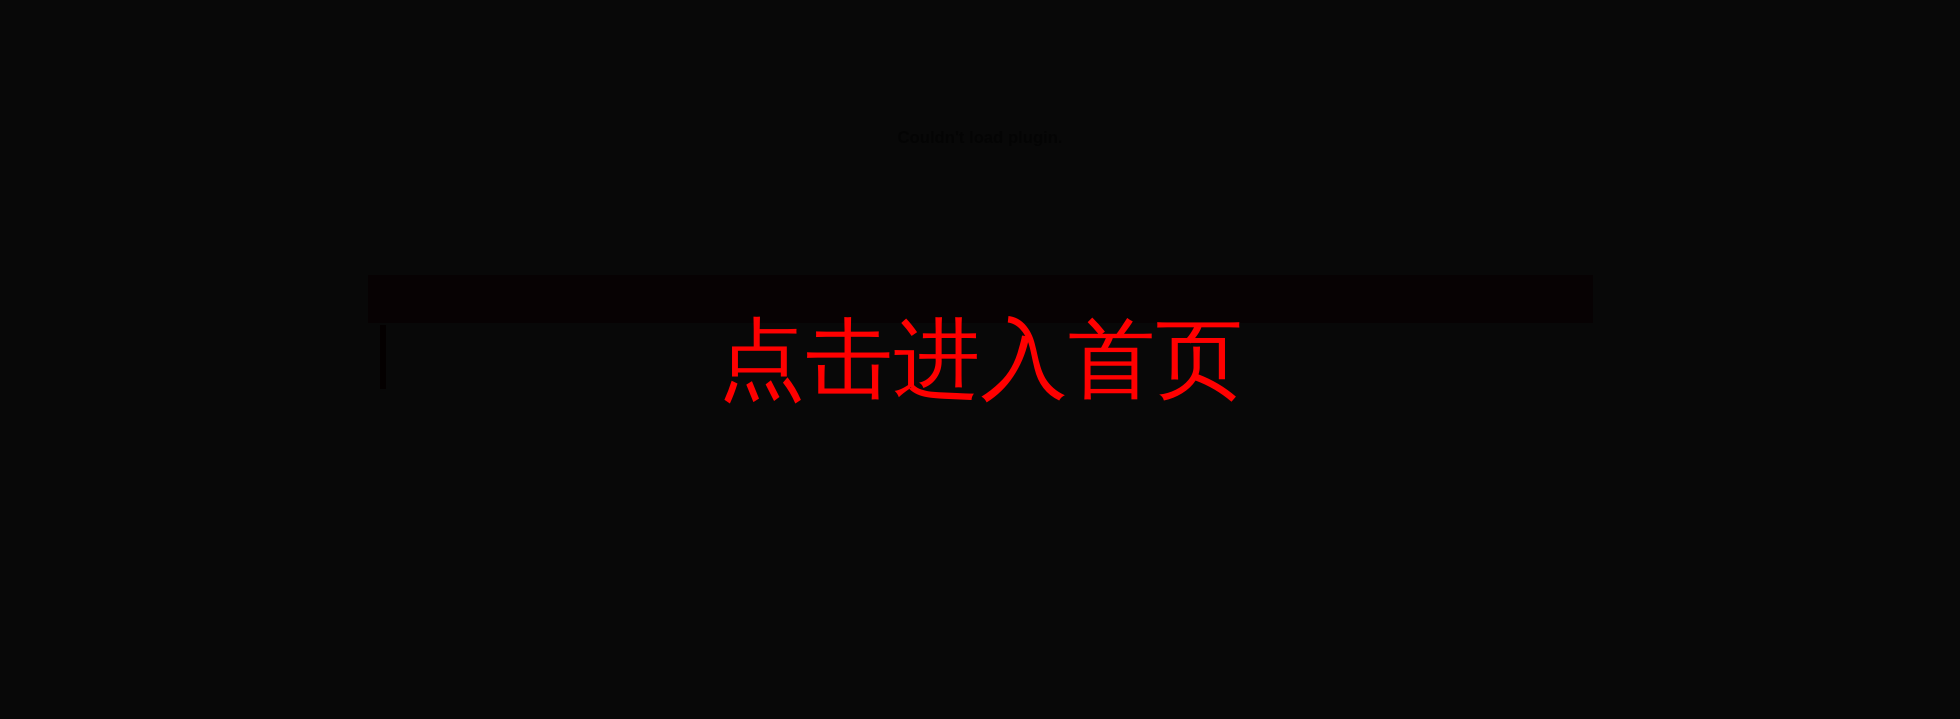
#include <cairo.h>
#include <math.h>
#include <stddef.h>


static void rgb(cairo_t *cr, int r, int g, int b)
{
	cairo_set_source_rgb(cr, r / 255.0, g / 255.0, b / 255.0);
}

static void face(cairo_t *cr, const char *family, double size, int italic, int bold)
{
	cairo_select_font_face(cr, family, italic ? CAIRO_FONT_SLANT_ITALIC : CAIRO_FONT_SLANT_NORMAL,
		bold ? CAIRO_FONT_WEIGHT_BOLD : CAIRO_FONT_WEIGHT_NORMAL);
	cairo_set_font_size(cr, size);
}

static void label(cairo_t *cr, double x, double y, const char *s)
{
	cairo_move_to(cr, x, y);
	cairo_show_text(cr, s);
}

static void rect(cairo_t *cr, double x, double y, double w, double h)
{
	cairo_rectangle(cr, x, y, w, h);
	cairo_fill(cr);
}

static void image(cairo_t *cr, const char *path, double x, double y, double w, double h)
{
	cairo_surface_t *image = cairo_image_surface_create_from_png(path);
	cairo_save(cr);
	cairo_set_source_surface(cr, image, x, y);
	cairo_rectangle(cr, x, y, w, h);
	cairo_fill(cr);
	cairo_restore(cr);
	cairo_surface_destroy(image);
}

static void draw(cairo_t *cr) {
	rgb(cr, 8, 8, 8);
	cairo_paint(cr);
	image(cr, "image0.png", 898, 131, 164, 15);
	rgb(cr, 7, 2, 3);
	rect(cr, 368, 275, 1225, 48);
	rgb(cr, 4, 0, 0);
	rect(cr, 380, 325, 6, 64);
	face(cr, "WenQuanYi Zen Hei Medium", 87.5, 0, 0);
	rgb(cr, 255, 0, 0);
	label(cr, 718, 389, "点击进入首页");
}

int main(void) {
	cairo_surface_t *surface = cairo_image_surface_create(CAIRO_FORMAT_RGB24, 1960, 719);
	cairo_t *cr = cairo_create(surface);
	cairo_font_options_t *options = cairo_font_options_create();
	cairo_font_options_set_hint_metrics(options, CAIRO_HINT_METRICS_OFF);
	cairo_font_options_set_hint_style(options, CAIRO_HINT_STYLE_NONE);
	cairo_set_font_options(cr, options);
	cairo_set_miter_limit(cr, 4);
	draw(cr);
	cairo_surface_write_to_png(surface, "render.png");
	cairo_font_options_destroy(options);
	cairo_destroy(cr);
	cairo_surface_destroy(surface);
	return 0;
}
